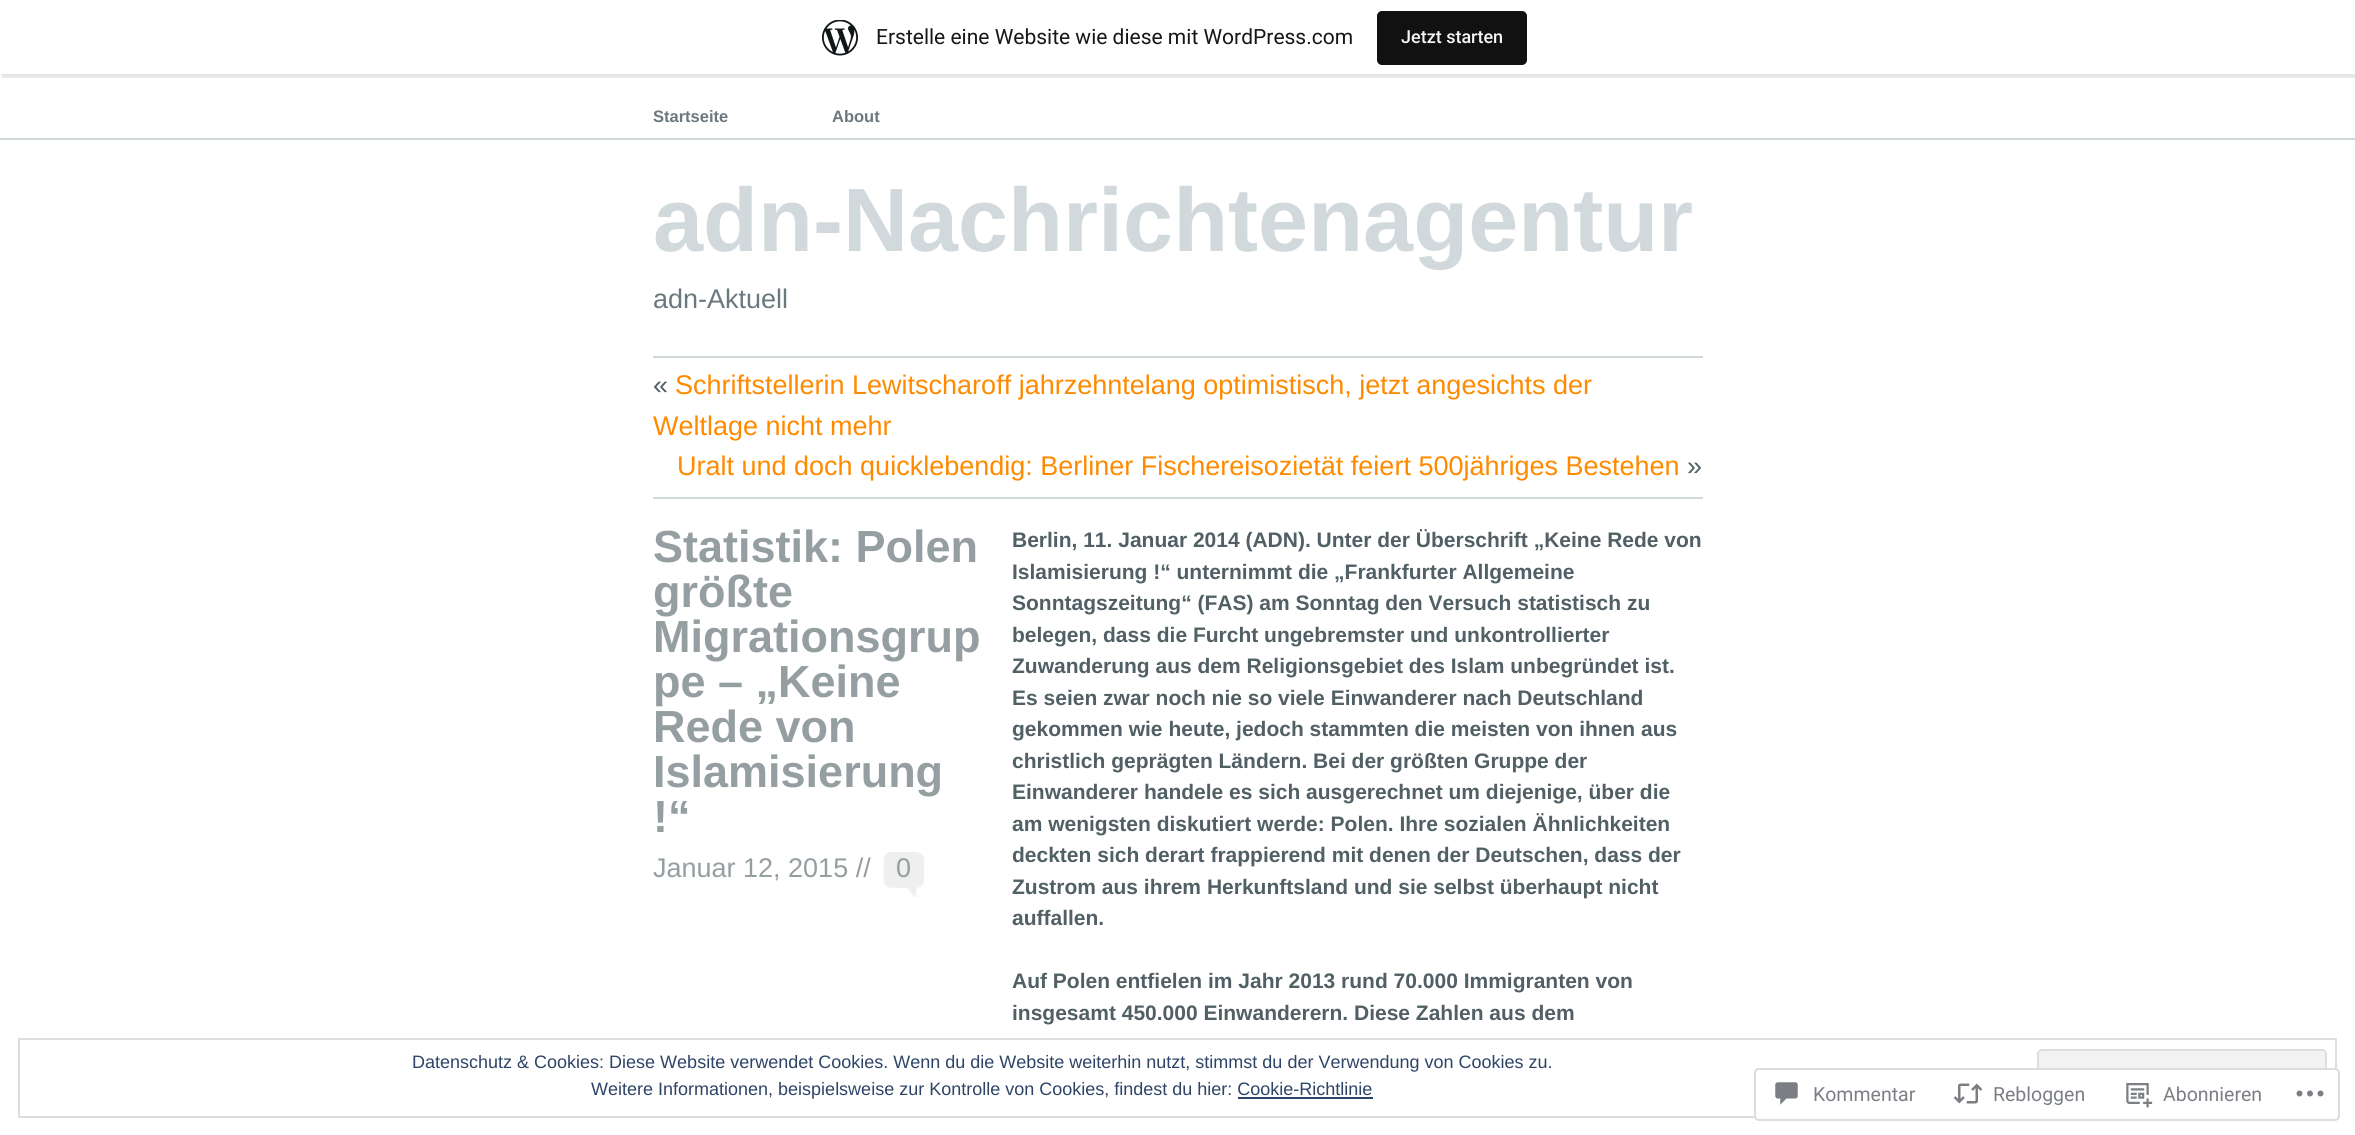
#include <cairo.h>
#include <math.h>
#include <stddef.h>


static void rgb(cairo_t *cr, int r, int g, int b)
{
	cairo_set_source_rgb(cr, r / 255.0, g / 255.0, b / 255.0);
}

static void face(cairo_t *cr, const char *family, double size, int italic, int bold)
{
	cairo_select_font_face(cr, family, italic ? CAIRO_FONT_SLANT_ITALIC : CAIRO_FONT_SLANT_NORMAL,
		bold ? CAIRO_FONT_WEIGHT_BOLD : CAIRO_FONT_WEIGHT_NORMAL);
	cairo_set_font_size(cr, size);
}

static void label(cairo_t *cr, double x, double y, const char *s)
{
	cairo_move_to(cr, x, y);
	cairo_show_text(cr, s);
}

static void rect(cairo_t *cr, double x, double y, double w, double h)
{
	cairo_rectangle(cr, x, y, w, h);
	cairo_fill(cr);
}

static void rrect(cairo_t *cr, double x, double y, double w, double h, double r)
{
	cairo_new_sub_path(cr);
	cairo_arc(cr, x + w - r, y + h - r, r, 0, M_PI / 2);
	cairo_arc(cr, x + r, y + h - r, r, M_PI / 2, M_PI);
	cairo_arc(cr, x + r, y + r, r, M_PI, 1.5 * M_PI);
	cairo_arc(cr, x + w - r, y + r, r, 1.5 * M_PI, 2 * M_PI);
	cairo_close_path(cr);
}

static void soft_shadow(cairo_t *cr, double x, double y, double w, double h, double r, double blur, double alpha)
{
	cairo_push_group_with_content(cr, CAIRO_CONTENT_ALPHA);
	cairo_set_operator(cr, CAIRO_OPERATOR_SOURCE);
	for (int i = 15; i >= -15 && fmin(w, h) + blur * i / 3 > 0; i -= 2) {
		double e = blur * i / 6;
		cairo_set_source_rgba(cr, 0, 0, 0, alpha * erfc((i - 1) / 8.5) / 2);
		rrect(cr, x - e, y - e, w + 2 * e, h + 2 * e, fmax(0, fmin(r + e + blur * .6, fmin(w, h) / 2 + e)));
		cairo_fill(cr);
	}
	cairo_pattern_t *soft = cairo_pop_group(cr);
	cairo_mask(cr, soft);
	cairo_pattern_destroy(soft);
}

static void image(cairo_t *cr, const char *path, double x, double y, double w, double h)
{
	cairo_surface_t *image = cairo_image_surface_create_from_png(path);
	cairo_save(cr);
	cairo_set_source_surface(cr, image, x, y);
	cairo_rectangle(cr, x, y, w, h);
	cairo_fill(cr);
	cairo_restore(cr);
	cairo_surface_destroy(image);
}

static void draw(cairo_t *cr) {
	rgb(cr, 255, 255, 255);
	cairo_paint(cr);
	rgb(cr, 0, 0, 0);
	soft_shadow(cr, 0, 2, 2355, 73, 0, 1.5, 0.05);
	cairo_set_source_rgba(cr, 0, 0, 0, 0.08);
	cairo_new_path(cr);
	cairo_move_to(cr, 2, 74);
	cairo_line_to(cr, 2, 78);
	cairo_line_to(cr, 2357, 78);
	cairo_line_to(cr, 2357, 5);
	cairo_line_to(cr, 2355, 5);
	cairo_line_to(cr, 2355, 74);
	cairo_close_path(cr);
	cairo_fill(cr);
	rgb(cr, 255, 255, 255);
	rect(cr, 0, 1, 2355, 73);
	image(cr, "image0.png", 822, 20, 36, 36);
	face(cr, "Roboto", 21, 0, 0);
	rgb(cr, 23, 23, 23);
	label(cr, 876, 44, "Erstelle eine Website wie diese mit WordPress.com");
	rgb(cr, 17, 17, 17);
	rrect(cr, 1377, 11, 150, 54, 5);
	cairo_fill(cr);
	face(cr, "Roboto Medium", 18, 0, 0);
	rgb(cr, 246, 247, 247);
	label(cr, 1401, 43, "Jetzt starten");
	rgb(cr, 209, 217, 220);
	rect(cr, 0, 138, 2355, 2);
	face(cr, "Liberation Sans", 16.5, 0, 1);
	rgb(cr, 106, 121, 125);
	label(cr, 653, 122, "Startseite");
	label(cr, 832, 122, "About");
	face(cr, "Liberation Sans", 90, 0, 1);
	rgb(cr, 209, 217, 220);
	label(cr, 653, 251, "adn-Nachrichtenagentur");
	face(cr, "Liberation Sans", 27, 0, 0);
	rgb(cr, 106, 121, 125);
	label(cr, 653, 308, "adn-Aktuell");
	rgb(cr, 209, 217, 220);
	rect(cr, 653, 356, 1050, 2);
	rgb(cr, 81, 96, 100);
	label(cr, 653, 394, "«");
	rgb(cr, 255, 138, 0);
	label(cr, 675, 394, "Schriftstellerin Lewitscharoff jahrzehntelang optimistisch, jetzt angesichts der");
	label(cr, 653, 435, "Weltlage nicht mehr");
	label(cr, 677, 475, "Uralt und doch quicklebendig: Berliner Fischereisozietät feiert 500jähriges Bestehen");
	rgb(cr, 81, 96, 100);
	label(cr, 1687, 475, "»");
	rgb(cr, 209, 217, 220);
	rect(cr, 653, 497, 1050, 2);
	face(cr, "Liberation Sans", 45, 0, 1);
	rgb(cr, 149, 158, 161);
	label(cr, 653, 562, "Statistik: Polen");
	label(cr, 653, 607, "größte");
	label(cr, 653, 652, "Migrationsgrup");
	label(cr, 653, 697, "pe – „Keine");
	label(cr, 653, 742, "Rede von");
	label(cr, 653, 787, "Islamisierung");
	label(cr, 653, 832, "!“");
	face(cr, "Liberation Sans", 27, 0, 0);
	label(cr, 653, 877, "Januar 12, 2015 //");
	image(cr, "image1.png", 883, 852, 41, 45);
	label(cr, 896, 877, "0");
	face(cr, "Liberation Sans", 21, 0, 1);
	rgb(cr, 81, 96, 100);
	label(cr, 1012, 547, "Berlin, 11. Januar 2014 (ADN). Unter der Überschrift „Keine Rede von");
	label(cr, 1012, 579, "Islamisierung !“ unternimmt die „Frankfurter Allgemeine");
	label(cr, 1012, 610, "Sonntagszeitung“ (FAS) am Sonntag den Versuch statistisch zu");
	label(cr, 1012, 642, "belegen, dass die Furcht ungebremster und unkontrollierter");
	label(cr, 1012, 673, "Zuwanderung aus dem Religionsgebiet des Islam unbegründet ist.");
	label(cr, 1012, 705, "Es seien zwar noch nie so viele Einwanderer nach Deutschland");
	label(cr, 1012, 736, "gekommen wie heute, jedoch stammten die meisten von ihnen aus");
	label(cr, 1012, 768, "christlich geprägten Ländern. Bei der größten Gruppe der");
	label(cr, 1012, 799, "Einwanderer handele es sich ausgerechnet um diejenige, über die");
	label(cr, 1012, 831, "am wenigsten diskutiert werde: Polen. Ihre sozialen Ähnlichkeiten");
	label(cr, 1012, 862, "deckten sich derart frappierend mit denen der Deutschen, dass der");
	label(cr, 1012, 894, "Zustrom aus ihrem Herkunftsland und sie selbst überhaupt nicht");
	label(cr, 1012, 925, "auffallen.");
	label(cr, 1012, 988, "Auf Polen entfielen im Jahr 2013 rund 70.000 Immigranten von");
	label(cr, 1012, 1020, "insgesamt 450.000 Einwanderern. Diese Zahlen aus dem");
	cairo_rectangle(cr, 19, 1039, 2317, 78);
	rgb(cr, 222, 222, 222);
	cairo_stroke(cr);
	face(cr, "Liberation Sans", 18, 0, 0);
	rgb(cr, 46, 68, 103);
	label(cr, 412, 1068, "Datenschutz & Cookies: Diese Website verwendet Cookies. Wenn du die Website weiterhin nutzt, stimmst du der Verwendung von Cookies zu.");
	rgb(cr, 243, 243, 243);
	rrect(cr, 2038, 1050, 288, 56, 4);
	cairo_fill_preserve(cr);
	rgb(cr, 222, 222, 222);
	cairo_stroke(cr);
	rgb(cr, 46, 68, 103);
	label(cr, 591, 1095, "Weitere Informationen, beispielsweise zur Kontrolle von Cookies, findest du hier: Cookie-Richtlinie");
	rect(cr, 1238, 1097, 135, 2);
	cairo_set_source_rgba(cr, 1, 1, 1, 0.98);
	rrect(cr, 1754, 1068, 586, 53, 5);
	cairo_fill(cr);
	rrect(cr, 1755, 1069, 584, 51, 4);
	cairo_set_source_rgba(cr, 0.863, 0.863, 0.871, 0.98);
	cairo_stroke(cr);
	image(cr, "image2.png", 1775, 1082, 23, 23);
	face(cr, "Roboto", 19.5, 0, 0);
	rgb(cr, 123, 127, 133);
	label(cr, 1813, 1101, "Kommentar");
	image(cr, "image3.png", 1953, 1083, 30, 21);
	label(cr, 1993, 1101, "Rebloggen");
	image(cr, "image4.png", 2126, 1083, 27, 25);
	label(cr, 2163, 1101, "Abonnieren");
	image(cr, "image5.png", 2296, 1090, 28, 7);
}

int main(void) {
	cairo_surface_t *surface = cairo_image_surface_create(CAIRO_FORMAT_RGB24, 2355, 1135);
	cairo_t *cr = cairo_create(surface);
	cairo_font_options_t *options = cairo_font_options_create();
	cairo_font_options_set_hint_metrics(options, CAIRO_HINT_METRICS_OFF);
	cairo_font_options_set_hint_style(options, CAIRO_HINT_STYLE_NONE);
	cairo_set_font_options(cr, options);
	cairo_set_miter_limit(cr, 4);
	draw(cr);
	cairo_surface_write_to_png(surface, "render.png");
	cairo_font_options_destroy(options);
	cairo_destroy(cr);
	cairo_surface_destroy(surface);
	return 0;
}
